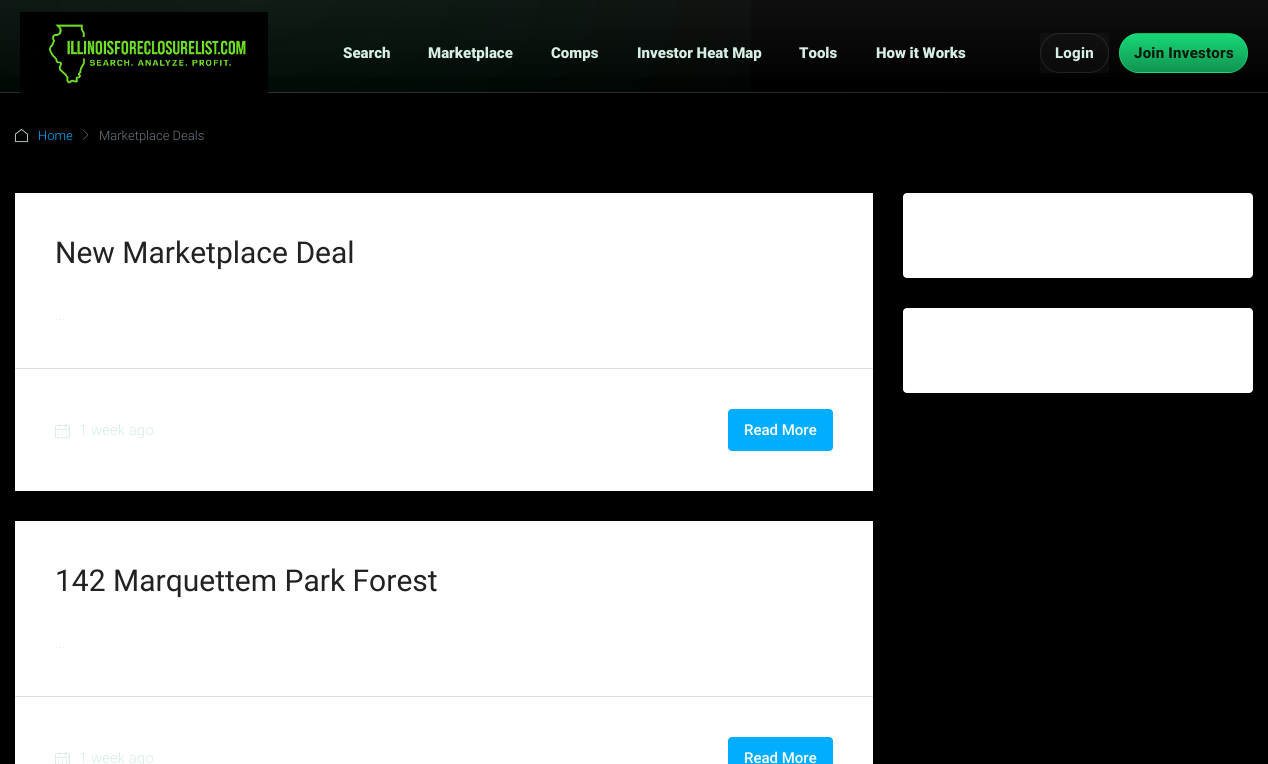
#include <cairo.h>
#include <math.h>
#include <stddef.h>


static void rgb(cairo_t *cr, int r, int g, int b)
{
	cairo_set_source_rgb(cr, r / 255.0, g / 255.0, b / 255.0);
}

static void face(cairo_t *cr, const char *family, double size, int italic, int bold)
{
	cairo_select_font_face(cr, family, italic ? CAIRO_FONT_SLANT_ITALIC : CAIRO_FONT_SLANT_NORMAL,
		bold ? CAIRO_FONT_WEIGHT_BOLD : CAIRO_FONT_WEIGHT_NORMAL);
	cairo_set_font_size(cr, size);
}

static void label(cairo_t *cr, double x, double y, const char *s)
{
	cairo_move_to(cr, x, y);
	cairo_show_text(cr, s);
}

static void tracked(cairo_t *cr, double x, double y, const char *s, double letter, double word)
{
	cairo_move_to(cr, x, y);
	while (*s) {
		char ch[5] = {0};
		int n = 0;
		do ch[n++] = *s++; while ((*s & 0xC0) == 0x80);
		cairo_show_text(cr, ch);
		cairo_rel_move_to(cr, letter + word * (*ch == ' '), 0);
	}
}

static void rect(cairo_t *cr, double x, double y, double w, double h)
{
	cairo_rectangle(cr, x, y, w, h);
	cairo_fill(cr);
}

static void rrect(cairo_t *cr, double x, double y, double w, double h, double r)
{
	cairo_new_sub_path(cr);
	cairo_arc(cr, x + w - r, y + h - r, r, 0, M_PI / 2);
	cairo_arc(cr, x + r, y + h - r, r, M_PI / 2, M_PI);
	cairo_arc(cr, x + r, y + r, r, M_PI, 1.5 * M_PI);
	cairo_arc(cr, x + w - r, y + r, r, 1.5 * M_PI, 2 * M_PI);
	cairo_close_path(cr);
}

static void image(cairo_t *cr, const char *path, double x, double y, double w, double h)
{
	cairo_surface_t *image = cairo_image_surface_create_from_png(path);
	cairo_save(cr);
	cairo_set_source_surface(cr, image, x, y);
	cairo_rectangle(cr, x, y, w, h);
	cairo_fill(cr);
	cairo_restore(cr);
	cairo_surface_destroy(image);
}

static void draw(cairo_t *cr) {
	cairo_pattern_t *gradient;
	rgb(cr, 0, 0, 0);
	cairo_paint(cr);
	gradient = cairo_pattern_create_linear(634, 0, 634, 92);
	cairo_pattern_add_color_stop_rgba(gradient, 0, 0.059, 0.059, 0.059, 1);
	cairo_pattern_add_color_stop_rgba(gradient, 1, 0, 0, 0, 1);
	cairo_set_source(cr, gradient);
	cairo_pattern_destroy(gradient);
	rect(cr, 0, 0, 1268, 77);
	gradient = cairo_pattern_create_radial(0, 0, 0, 0, 0, 1);
	cairo_pattern_set_matrix(gradient, &(cairo_matrix_t){1.0 / 1200, 0, 0, 1.0 / 600, -1.0 * 254 / 1200, -1.0 * 0 / 600});
	cairo_pattern_add_color_stop_rgba(gradient, 0, 0.094, 0.886, 0.482, 0.07);
	cairo_pattern_add_color_stop_rgba(gradient, 0.6, 0.094, 0.886, 0.482, 0);
	cairo_set_source(cr, gradient);
	cairo_pattern_destroy(gradient);
	rect(cr, 0, 0, 751, 92);
	gradient = cairo_pattern_create_radial(0, 0, 0, 0, 0, 1);
	cairo_pattern_set_matrix(gradient, &(cairo_matrix_t){1.0 / 1200, 0, 0, 1.0 / 600, -1.0 * 254 / 1200, -1.0 * 92 / 600});
	cairo_pattern_add_color_stop_rgba(gradient, 0, 0.157, 0.208, 0.18, 1);
	cairo_pattern_add_color_stop_rgba(gradient, 0.6, 0.153, 0.153, 0.153, 1);
	cairo_set_source(cr, gradient);
	cairo_pattern_destroy(gradient);
	rect(cr, 0, 92, 1268, 1);
	image(cr, "image0.png", 20, 12, 248, 81);
	face(cr, "Roboto Black", 15, 0, 0);
	rgb(cr, 214, 238, 227);
	label(cr, 343, 58, "Search");
	label(cr, 428, 58, "Marketplace");
	label(cr, 551, 58, "Comps");
	label(cr, 637, 58, "Investor Heat Map");
	label(cr, 799, 58, "Tools");
	label(cr, 876, 58, "How it Works");
	cairo_set_source_rgba(cr, 1, 1, 1, 0.03);
	rect(cr, 1040, 33, 69, 40);
	rrect(cr, 1040.5, 33.5, 68, 39, 19.5);
	cairo_set_source_rgba(cr, 1, 1, 1, 0.1);
	cairo_set_line_width(cr, 1);
	cairo_stroke(cr);
	face(cr, "Roboto ExtraBold", 15, 0, 0);
	rgb(cr, 214, 238, 227);
	tracked(cr, 1055, 58, "Login", 0.25, 0);
	cairo_save(cr);
	rrect(cr, 1119, 33, 129, 40, 20);
	cairo_clip(cr);
	gradient = cairo_pattern_create_linear(1184, -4, 1184, 34);
	cairo_pattern_add_color_stop_rgba(gradient, 0, 0.09, 0.843, 0.459, 1);
	cairo_pattern_add_color_stop_rgba(gradient, 1, 0.075, 0.588, 0.325, 1);
	cairo_set_source(cr, gradient);
	cairo_pattern_destroy(gradient);
	rect(cr, 1133, 33, 101, 1);
	gradient = cairo_pattern_create_linear(1184, 34, 1184, 72);
	cairo_pattern_add_color_stop_rgba(gradient, 0, 0.094, 0.886, 0.482, 0.95);
	cairo_pattern_add_color_stop_rgba(gradient, 1, 0.094, 0.886, 0.482, 0.65);
	cairo_set_source(cr, gradient);
	cairo_pattern_destroy(gradient);
	rect(cr, 1119, 34, 129, 38);
	gradient = cairo_pattern_create_linear(1184, 72, 1184, 110);
	cairo_pattern_add_color_stop_rgba(gradient, 0, 0.09, 0.843, 0.459, 1);
	cairo_pattern_add_color_stop_rgba(gradient, 1, 0.067, 0.58, 0.318, 1);
	cairo_set_source(cr, gradient);
	cairo_pattern_destroy(gradient);
	rect(cr, 1133, 72, 101, 1);
	cairo_restore(cr);
	rrect(cr, 1119.5, 33.5, 128, 39, 19.5);
	cairo_set_source_rgba(cr, 0.094, 0.886, 0.482, 0.45);
	cairo_stroke(cr);
	rgb(cr, 0, 27, 12);
	tracked(cr, 1134, 58, "Join Investors", 0.25, 0);
	image(cr, "image1.png", 15, 129, 13, 14);
	face(cr, "Roboto Light", 13, 0, 0);
	rgb(cr, 0, 174, 255);
	label(cr, 38, 140, "Home");
	image(cr, "image2.png", 83, 129, 6, 11);
	rgb(cr, 108, 117, 125);
	label(cr, 99, 140, "Marketplace Deals");
	rgb(cr, 255, 255, 255);
	rect(cr, 15, 193, 858, 298);
	face(cr, "Roboto", 30, 0, 0);
	rgb(cr, 34, 34, 34);
	label(cr, 55, 263, "New Marketplace Deal");
	face(cr, "Roboto Light", 15, 0, 0);
	rgb(cr, 214, 238, 227);
	label(cr, 55, 320, "...");
	rgb(cr, 220, 224, 224);
	rect(cr, 15, 368, 858, 1);
	image(cr, "image3.png", 55, 423, 15, 16);
	rgb(cr, 214, 238, 227);
	label(cr, 79, 435, "1 week ago");
	rgb(cr, 0, 174, 255);
	rrect(cr, 728.5, 409.5, 104, 41, 3.5);
	cairo_fill_preserve(cr);
	cairo_stroke(cr);
	face(cr, "Roboto Medium", 15, 0, 0);
	rgb(cr, 255, 255, 255);
	label(cr, 744, 435, "Read More");
	rect(cr, 15, 521, 858, 243);
	face(cr, "Roboto", 30, 0, 0);
	rgb(cr, 34, 34, 34);
	label(cr, 55, 591, "142 Marquettem Park Forest");
	face(cr, "Roboto Light", 15, 0, 0);
	rgb(cr, 214, 238, 227);
	label(cr, 55, 648, "...");
	rgb(cr, 220, 224, 224);
	rect(cr, 15, 696, 858, 1);
	image(cr, "image4.png", 55, 751, 15, 13);
	rgb(cr, 214, 238, 227);
	label(cr, 79, 763, "1 week ago");
	rgb(cr, 0, 174, 255);
	rrect(cr, 728.5, 737.5, 104, 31, 3.5);
	cairo_fill_preserve(cr);
	cairo_stroke(cr);
	face(cr, "Roboto Medium", 15, 0, 0);
	rgb(cr, 255, 255, 255);
	label(cr, 744, 763, "Read More");
	rrect(cr, 903, 193, 350, 85, 4);
	cairo_fill(cr);
	rrect(cr, 903, 308, 350, 85, 4);
	cairo_fill(cr);
}

int main(void) {
	cairo_surface_t *surface = cairo_image_surface_create(CAIRO_FORMAT_RGB24, 1268, 764);
	cairo_t *cr = cairo_create(surface);
	cairo_font_options_t *options = cairo_font_options_create();
	cairo_font_options_set_hint_metrics(options, CAIRO_HINT_METRICS_OFF);
	cairo_font_options_set_hint_style(options, CAIRO_HINT_STYLE_NONE);
	cairo_set_font_options(cr, options);
	cairo_set_miter_limit(cr, 4);
	draw(cr);
	cairo_surface_write_to_png(surface, "render.png");
	cairo_font_options_destroy(options);
	cairo_destroy(cr);
	cairo_surface_destroy(surface);
	return 0;
}
